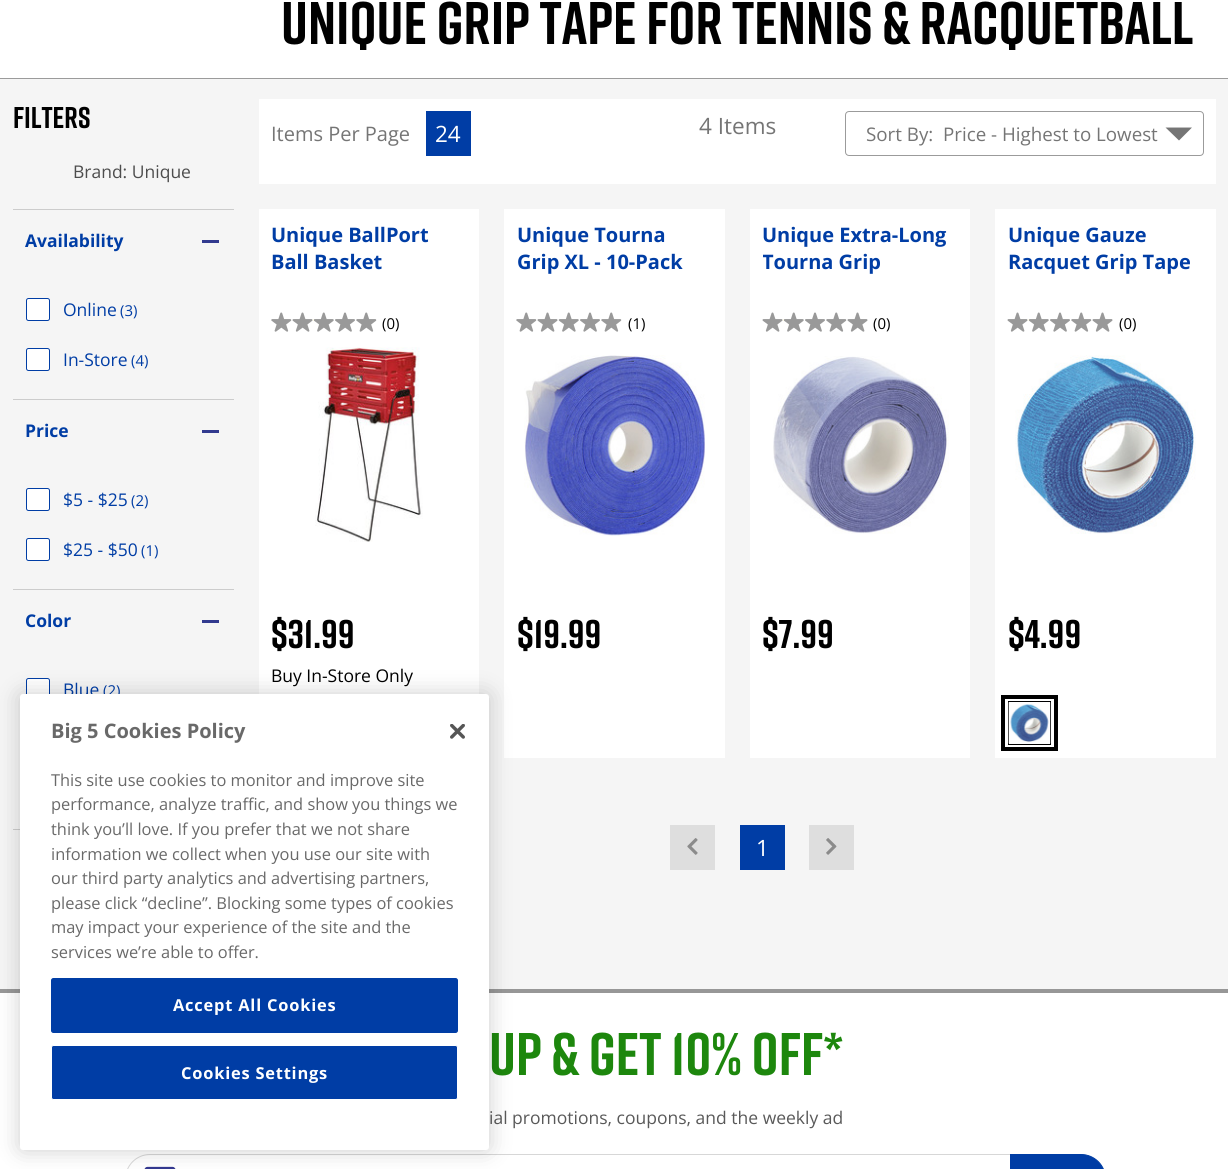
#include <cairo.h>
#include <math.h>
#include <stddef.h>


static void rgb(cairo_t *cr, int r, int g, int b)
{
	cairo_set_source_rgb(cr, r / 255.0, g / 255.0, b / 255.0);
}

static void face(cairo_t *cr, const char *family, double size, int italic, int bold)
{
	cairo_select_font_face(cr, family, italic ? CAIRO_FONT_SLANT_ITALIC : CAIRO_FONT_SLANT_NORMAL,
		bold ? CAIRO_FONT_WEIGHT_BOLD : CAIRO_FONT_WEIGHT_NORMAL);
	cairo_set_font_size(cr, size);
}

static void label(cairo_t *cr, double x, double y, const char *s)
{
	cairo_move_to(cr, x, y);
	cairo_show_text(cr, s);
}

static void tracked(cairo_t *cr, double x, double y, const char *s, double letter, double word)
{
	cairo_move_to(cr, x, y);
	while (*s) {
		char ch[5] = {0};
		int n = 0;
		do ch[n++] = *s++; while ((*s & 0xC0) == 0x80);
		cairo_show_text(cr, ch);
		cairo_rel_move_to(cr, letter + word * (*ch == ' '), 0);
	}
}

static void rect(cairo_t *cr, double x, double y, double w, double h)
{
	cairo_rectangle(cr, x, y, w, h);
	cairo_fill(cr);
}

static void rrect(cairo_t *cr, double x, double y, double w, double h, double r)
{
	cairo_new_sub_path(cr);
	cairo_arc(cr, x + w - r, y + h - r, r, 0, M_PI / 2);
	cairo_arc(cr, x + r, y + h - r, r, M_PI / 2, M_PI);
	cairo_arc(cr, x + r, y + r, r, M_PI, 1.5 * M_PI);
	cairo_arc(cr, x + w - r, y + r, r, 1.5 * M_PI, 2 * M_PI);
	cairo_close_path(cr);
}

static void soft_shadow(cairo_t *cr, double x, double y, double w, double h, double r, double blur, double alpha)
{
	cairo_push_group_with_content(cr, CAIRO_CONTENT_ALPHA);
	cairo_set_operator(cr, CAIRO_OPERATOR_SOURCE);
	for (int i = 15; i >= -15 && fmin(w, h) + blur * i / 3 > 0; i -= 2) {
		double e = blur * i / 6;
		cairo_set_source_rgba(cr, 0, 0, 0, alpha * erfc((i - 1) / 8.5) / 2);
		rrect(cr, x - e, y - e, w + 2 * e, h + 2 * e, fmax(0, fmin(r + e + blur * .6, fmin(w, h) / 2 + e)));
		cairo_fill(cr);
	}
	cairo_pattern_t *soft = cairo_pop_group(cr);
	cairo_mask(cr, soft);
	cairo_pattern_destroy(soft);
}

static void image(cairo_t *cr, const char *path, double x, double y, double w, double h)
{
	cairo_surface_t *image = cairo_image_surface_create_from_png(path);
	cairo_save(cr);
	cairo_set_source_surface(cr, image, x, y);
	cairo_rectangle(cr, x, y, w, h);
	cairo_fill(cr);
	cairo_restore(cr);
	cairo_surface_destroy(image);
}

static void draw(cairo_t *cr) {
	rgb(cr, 255, 255, 255);
	cairo_paint(cr);
	face(cr, "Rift", 60, 0, 1);
	rgb(cr, 0, 0, 0);
	label(cr, 281, 44, "UNIQUE GRIP TAPE FOR TENNIS & RACQUETBALL");
	rgb(cr, 245, 245, 245);
	rect(cr, 0, 79, 1228, 910);
	rgb(cr, 155, 155, 155);
	rect(cr, 0, 78, 1228, 1);
	face(cr, "Rift", 30, 0, 1);
	rgb(cr, 0, 0, 0);
	label(cr, 13, 128, "Filters");
	face(cr, "Open Sans", 17.5, 0, 0);
	rgb(cr, 77, 77, 77);
	label(cr, 73, 178, "Brand: Unique");
	rgb(cr, 204, 204, 204);
	rect(cr, 13, 209, 221, 1);
	face(cr, "Open Sans", 17.5, 0, 1);
	rgb(cr, 0, 61, 165);
	label(cr, 25, 247, "Availability");
	rgb(cr, 50, 58, 143);
	rect(cr, 202, 240, 17, 3);
	rgb(cr, 255, 255, 255);
	rrect(cr, 26.5, 298.5, 23, 22, 2);
	cairo_fill_preserve(cr);
	rgb(cr, 0, 61, 165);
	cairo_set_line_width(cr, 1);
	cairo_stroke(cr);
	face(cr, "Open Sans", 17.5, 0, 0);
	label(cr, 63, 316, "Online");
	face(cr, "Open Sans", 15, 0, 0);
	label(cr, 120, 316, "(3)");
	rgb(cr, 255, 255, 255);
	rrect(cr, 26.5, 348.5, 23, 22, 2);
	cairo_fill_preserve(cr);
	rgb(cr, 0, 61, 165);
	cairo_stroke(cr);
	face(cr, "Open Sans", 17.5, 0, 0);
	label(cr, 63, 366, "In-Store");
	face(cr, "Open Sans", 15, 0, 0);
	label(cr, 131, 366, "(4)");
	rgb(cr, 204, 204, 204);
	rect(cr, 13, 399, 221, 1);
	face(cr, "Open Sans", 17.5, 0, 1);
	rgb(cr, 0, 61, 165);
	label(cr, 25, 437, "Price");
	rgb(cr, 50, 58, 143);
	rect(cr, 202, 430, 17, 3);
	rgb(cr, 255, 255, 255);
	rrect(cr, 26.5, 488.5, 23, 22, 2);
	cairo_fill_preserve(cr);
	rgb(cr, 0, 61, 165);
	cairo_stroke(cr);
	face(cr, "Open Sans", 17.5, 0, 0);
	label(cr, 63, 506, "$5 - $25");
	face(cr, "Open Sans", 15, 0, 0);
	label(cr, 131, 506, "(2)");
	rgb(cr, 255, 255, 255);
	rrect(cr, 26.5, 538.5, 23, 22, 2);
	cairo_fill_preserve(cr);
	rgb(cr, 0, 61, 165);
	cairo_stroke(cr);
	face(cr, "Open Sans", 17.5, 0, 0);
	label(cr, 63, 556, "$25 - $50");
	face(cr, "Open Sans", 15, 0, 0);
	label(cr, 141, 556, "(1)");
	rgb(cr, 204, 204, 204);
	rect(cr, 13, 589, 221, 1);
	face(cr, "Open Sans", 17.5, 0, 1);
	rgb(cr, 0, 61, 165);
	label(cr, 25, 627, "Color");
	rgb(cr, 50, 58, 143);
	rect(cr, 202, 620, 17, 3);
	rgb(cr, 255, 255, 255);
	rrect(cr, 26.5, 678.5, 23, 22, 2);
	cairo_fill_preserve(cr);
	rgb(cr, 0, 61, 165);
	cairo_stroke(cr);
	face(cr, "Open Sans", 17.5, 0, 0);
	label(cr, 63, 696, "Blue");
	face(cr, "Open Sans", 15, 0, 0);
	label(cr, 103, 696, "(2)");
	rgb(cr, 204, 204, 204);
	rect(cr, 13, 829, 7, 1);
	rgb(cr, 255, 255, 255);
	rect(cr, 259, 99, 957, 85);
	face(cr, "Open Sans", 20, 0, 0);
	rgb(cr, 117, 117, 117);
	label(cr, 271, 141, "Items Per Page");
	rgb(cr, 0, 61, 165);
	rect(cr, 426, 111, 45, 45);
	face(cr, "Open Sans", 22.5, 0, 0);
	rgb(cr, 255, 255, 255);
	label(cr, 435, 142, "24");
	rgb(cr, 117, 117, 117);
	label(cr, 699, 134, "4 Items");
	rrect(cr, 845.5, 111.5, 358, 44, 3.5);
	rgb(cr, 155, 155, 155);
	cairo_stroke(cr);
	face(cr, "Open Sans", 18.75, 0, 0);
	rgb(cr, 117, 117, 117);
	label(cr, 866, 141, "Sort By:");
	label(cr, 943, 141, "Price - Highest to Lowest");
	cairo_new_path(cr);
	cairo_move_to(cr, 1165.5, 127.5);
	cairo_line_to(cr, 1192, 127.5);
	cairo_line_to(cr, 1179, 140.5);
	cairo_close_path(cr);
	cairo_fill(cr);
	rgb(cr, 255, 255, 255);
	rect(cr, 259, 209, 220, 485);
	face(cr, "Open Sans", 20, 0, 1);
	rgb(cr, 0, 61, 165);
	label(cr, 271, 242, "Unique BallPort");
	label(cr, 271, 269, "Ball Basket");
	image(cr, "image0.png", 271, 312, 21, 20);
	image(cr, "image1.png", 292, 312, 21, 20);
	image(cr, "image2.png", 313, 312, 21, 20);
	image(cr, "image3.png", 335, 312, 20, 20);
	image(cr, "image0.png", 356, 312, 21, 20);
	face(cr, "Open Sans", 15, 0, 0);
	rgb(cr, 0, 0, 0);
	label(cr, 382, 329, "(0)");
	image(cr, "image4.png", 315, 347, 108, 195);
	face(cr, "Rift", 40, 0, 1);
	label(cr, 271, 648, "$31.99");
	face(cr, "Open Sans", 17.5, 0, 0);
	label(cr, 271, 682, "Buy In-Store Only");
	rgb(cr, 255, 255, 255);
	rect(cr, 504, 209, 221, 549);
	face(cr, "Open Sans", 20, 0, 1);
	rgb(cr, 0, 61, 165);
	label(cr, 517, 242, "Unique Tourna");
	label(cr, 517, 269, "Grip XL - 10-Pack");
	image(cr, "image0.png", 516, 312, 21, 20);
	image(cr, "image1.png", 537, 312, 21, 20);
	image(cr, "image5.png", 558, 312, 21, 20);
	image(cr, "image3.png", 580, 312, 20, 20);
	image(cr, "image0.png", 601, 312, 21, 20);
	face(cr, "Open Sans", 15, 0, 0);
	rgb(cr, 0, 0, 0);
	label(cr, 628, 329, "(1)");
	image(cr, "image6.png", 524, 355, 181, 181);
	face(cr, "Rift", 40, 0, 1);
	label(cr, 517, 648, "$19.99");
	rgb(cr, 255, 255, 255);
	rect(cr, 750, 209, 220, 549);
	face(cr, "Open Sans", 20, 0, 1);
	rgb(cr, 0, 61, 165);
	label(cr, 762, 242, "Unique Extra-Long");
	cairo_save(cr);
	cairo_rectangle(cr, 763, 221, 195, 83);
	cairo_clip(cr);
	label(cr, 762, 269, "Tourna Grip");
	cairo_restore(cr);
	image(cr, "image1.png", 762, 312, 21, 20);
	image(cr, "image2.png", 783, 312, 21, 20);
	image(cr, "image3.png", 805, 312, 20, 20);
	image(cr, "image0.png", 826, 312, 21, 20);
	image(cr, "image1.png", 847, 312, 21, 20);
	face(cr, "Open Sans", 15, 0, 0);
	rgb(cr, 0, 0, 0);
	label(cr, 873, 329, "(0)");
	image(cr, "image7.png", 773, 356, 176, 178);
	face(cr, "Rift", 40, 0, 1);
	label(cr, 762, 648, "$7.99");
	rgb(cr, 255, 255, 255);
	rect(cr, 995, 209, 221, 549);
	face(cr, "Open Sans", 20, 0, 1);
	rgb(cr, 0, 61, 165);
	label(cr, 1008, 242, "Unique Gauze");
	label(cr, 1008, 269, "Racquet Grip Tape");
	image(cr, "image1.png", 1007, 312, 21, 20);
	image(cr, "image2.png", 1028, 312, 21, 20);
	image(cr, "image3.png", 1050, 312, 20, 20);
	image(cr, "image0.png", 1071, 312, 21, 20);
	image(cr, "image1.png", 1092, 312, 21, 20);
	face(cr, "Open Sans", 15, 0, 0);
	rgb(cr, 0, 0, 0);
	label(cr, 1119, 329, "(0)");
	image(cr, "image8.png", 1015, 355, 181, 179);
	face(cr, "Rift", 40, 0, 1);
	label(cr, 1008, 648, "$4.99");
	cairo_rectangle(cr, 1008.5, 701.5, 42, 43);
	cairo_stroke(cr);
	image(cr, "image9.png", 1008, 702, 43, 42);
	cairo_rectangle(cr, 1003, 697, 53, 52);
	cairo_set_line_width(cr, 4);
	cairo_stroke(cr);
	rgb(cr, 222, 222, 222);
	rect(cr, 670, 825, 45, 45);
	image(cr, "image10.png", 687, 838, 11, 17);
	rgb(cr, 0, 61, 165);
	rect(cr, 740, 825, 45, 45);
	face(cr, "Open Sans", 22.5, 0, 0);
	rgb(cr, 255, 255, 255);
	label(cr, 756, 856, "1");
	rgb(cr, 222, 222, 222);
	rect(cr, 809, 825, 45, 45);
	image(cr, "image11.png", 826, 838, 11, 17);
	rgb(cr, 151, 151, 151);
	rect(cr, 0, 989, 1228, 4);
	face(cr, "Rift", 60, 0, 1);
	rgb(cr, 29, 135, 13);
	label(cr, 489, 1075, "UP & GET 10% OFF*");
	face(cr, "Open Sans", 17.5, 0, 0);
	rgb(cr, 89, 89, 89);
	label(cr, 489, 1124, "ial promotions, coupons, and the weekly ad");
	rrect(cr, 125.5, 1154.5, 979, 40, 24.5);
	rgb(cr, 215, 215, 215);
	cairo_set_line_width(cr, 1);
	cairo_stroke(cr);
	image(cr, "image12.png", 144, 1166, 32, 3);
	rgb(cr, 0, 61, 165);
	cairo_new_path(cr);
	cairo_move_to(cr, 1010.5, 1154.5);
	cairo_line_to(cr, 1081, 1154.5);
	cairo_curve_to(cr, 1094.5, 1154.5, 1105.5, 1165.5, 1105.5, 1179);
	cairo_line_to(cr, 1105.5, 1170);
	cairo_curve_to(cr, 1105.5, 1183.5, 1094.5, 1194.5, 1081, 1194.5);
	cairo_line_to(cr, 1010.5, 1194.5);
	cairo_close_path(cr);
	cairo_fill_preserve(cr);
	cairo_stroke(cr);
	rgb(cr, 0, 0, 0);
	soft_shadow(cr, 20, 694, 469, 456, 3, 11, 0.2);
	rgb(cr, 255, 255, 255);
	rrect(cr, 20, 694, 469, 456, 3);
	cairo_fill(cr);
	face(cr, "Open Sans", 20, 0, 1);
	rgb(cr, 105, 105, 105);
	label(cr, 51, 738, "Big 5 Cookies Policy");
	face(cr, "Open Sans", 16.4, 0, 0);
	label(cr, 51, 786, "This site use cookies to monitor and improve site");
	label(cr, 51, 810, "performance, analyze traffic, and show you things we");
	label(cr, 51, 835, "think you’ll love. If you prefer that we not share");
	label(cr, 51, 860, "information we collect when you use our site with");
	label(cr, 51, 884, "our third party analytics and advertising partners,");
	label(cr, 51, 909, "please click “decline”. Blocking some types of cookies");
	label(cr, 51, 933, "may impact your experience of the site and the");
	label(cr, 51, 958, "services we’re able to offer.");
	image(cr, "image13.png", 450, 724, 15, 15);
	rgb(cr, 0, 61, 165);
	rrect(cr, 51.5, 978.5, 406, 54, 2);
	cairo_fill_preserve(cr);
	cairo_stroke(cr);
	face(cr, "Open Sans", 16.4, 0, 1);
	rgb(cr, 255, 255, 255);
	tracked(cr, 173, 1011, "Accept All Cookies", 0.8, 0);
	rgb(cr, 0, 61, 165);
	rrect(cr, 51.5, 1045.5, 406, 54, 2);
	cairo_fill_preserve(cr);
	rgb(cr, 255, 255, 255);
	cairo_stroke(cr);
	tracked(cr, 181, 1079, "Cookies Settings", 0.8, 0);
}

int main(void) {
	cairo_surface_t *surface = cairo_image_surface_create(CAIRO_FORMAT_RGB24, 1228, 1169);
	cairo_t *cr = cairo_create(surface);
	cairo_font_options_t *options = cairo_font_options_create();
	cairo_font_options_set_hint_metrics(options, CAIRO_HINT_METRICS_OFF);
	cairo_font_options_set_hint_style(options, CAIRO_HINT_STYLE_NONE);
	cairo_set_font_options(cr, options);
	cairo_set_miter_limit(cr, 4);
	draw(cr);
	cairo_surface_write_to_png(surface, "render.png");
	cairo_font_options_destroy(options);
	cairo_destroy(cr);
	cairo_surface_destroy(surface);
	return 0;
}
